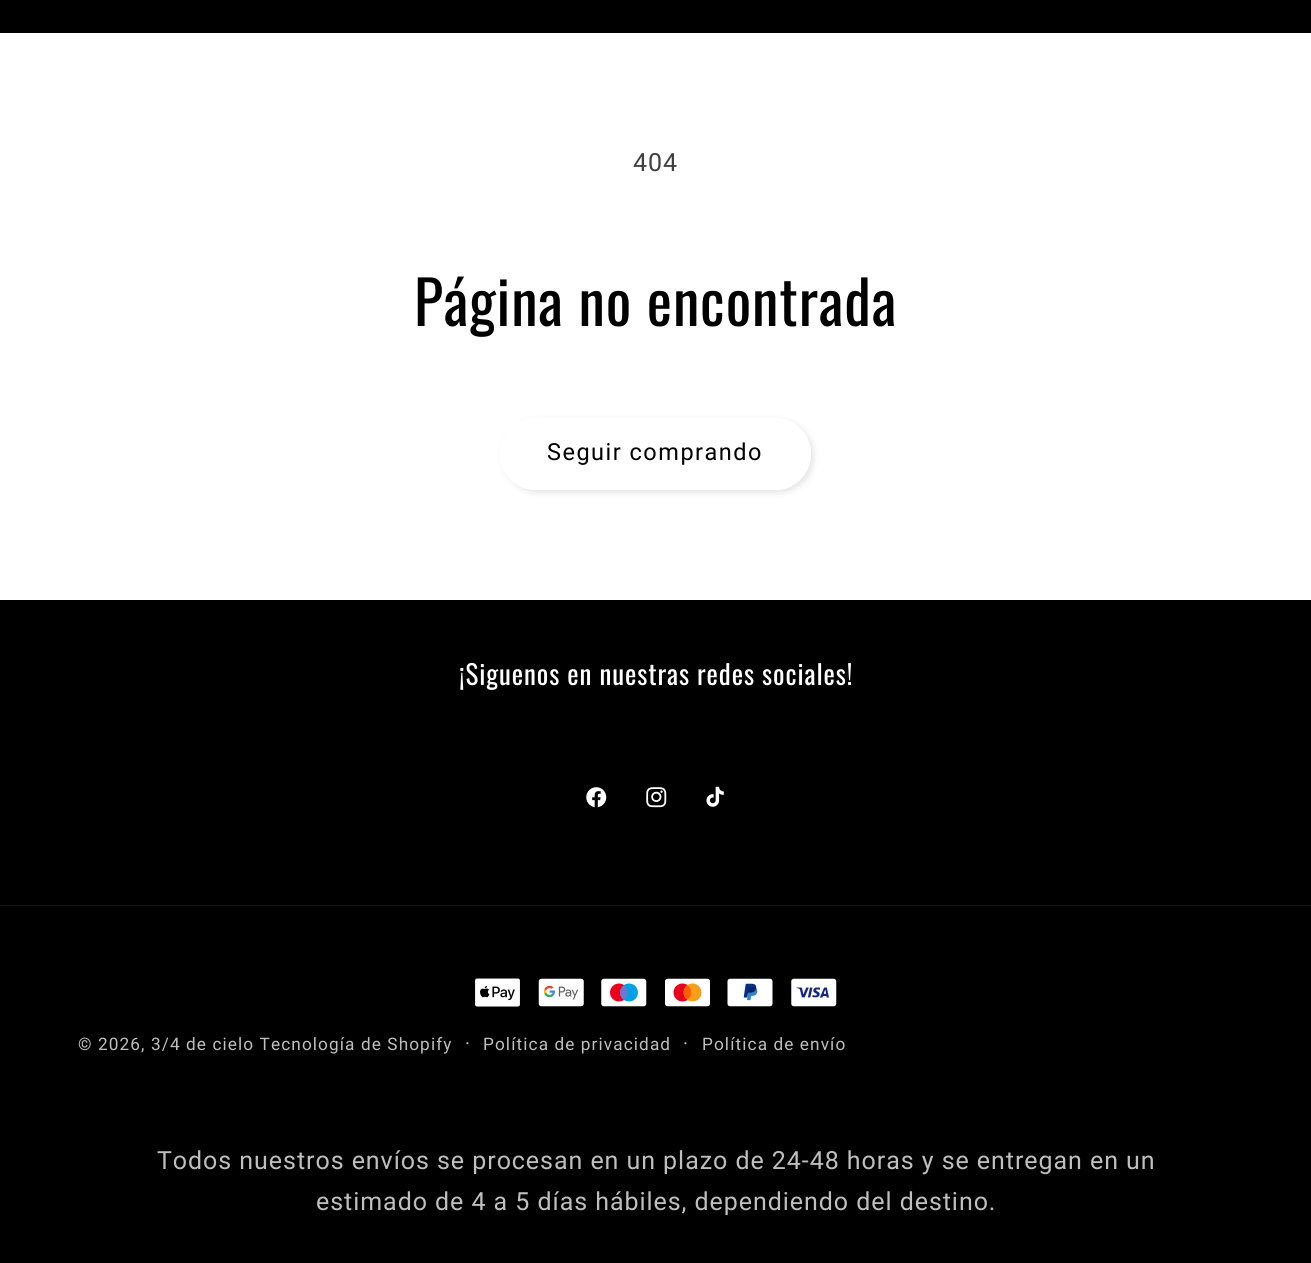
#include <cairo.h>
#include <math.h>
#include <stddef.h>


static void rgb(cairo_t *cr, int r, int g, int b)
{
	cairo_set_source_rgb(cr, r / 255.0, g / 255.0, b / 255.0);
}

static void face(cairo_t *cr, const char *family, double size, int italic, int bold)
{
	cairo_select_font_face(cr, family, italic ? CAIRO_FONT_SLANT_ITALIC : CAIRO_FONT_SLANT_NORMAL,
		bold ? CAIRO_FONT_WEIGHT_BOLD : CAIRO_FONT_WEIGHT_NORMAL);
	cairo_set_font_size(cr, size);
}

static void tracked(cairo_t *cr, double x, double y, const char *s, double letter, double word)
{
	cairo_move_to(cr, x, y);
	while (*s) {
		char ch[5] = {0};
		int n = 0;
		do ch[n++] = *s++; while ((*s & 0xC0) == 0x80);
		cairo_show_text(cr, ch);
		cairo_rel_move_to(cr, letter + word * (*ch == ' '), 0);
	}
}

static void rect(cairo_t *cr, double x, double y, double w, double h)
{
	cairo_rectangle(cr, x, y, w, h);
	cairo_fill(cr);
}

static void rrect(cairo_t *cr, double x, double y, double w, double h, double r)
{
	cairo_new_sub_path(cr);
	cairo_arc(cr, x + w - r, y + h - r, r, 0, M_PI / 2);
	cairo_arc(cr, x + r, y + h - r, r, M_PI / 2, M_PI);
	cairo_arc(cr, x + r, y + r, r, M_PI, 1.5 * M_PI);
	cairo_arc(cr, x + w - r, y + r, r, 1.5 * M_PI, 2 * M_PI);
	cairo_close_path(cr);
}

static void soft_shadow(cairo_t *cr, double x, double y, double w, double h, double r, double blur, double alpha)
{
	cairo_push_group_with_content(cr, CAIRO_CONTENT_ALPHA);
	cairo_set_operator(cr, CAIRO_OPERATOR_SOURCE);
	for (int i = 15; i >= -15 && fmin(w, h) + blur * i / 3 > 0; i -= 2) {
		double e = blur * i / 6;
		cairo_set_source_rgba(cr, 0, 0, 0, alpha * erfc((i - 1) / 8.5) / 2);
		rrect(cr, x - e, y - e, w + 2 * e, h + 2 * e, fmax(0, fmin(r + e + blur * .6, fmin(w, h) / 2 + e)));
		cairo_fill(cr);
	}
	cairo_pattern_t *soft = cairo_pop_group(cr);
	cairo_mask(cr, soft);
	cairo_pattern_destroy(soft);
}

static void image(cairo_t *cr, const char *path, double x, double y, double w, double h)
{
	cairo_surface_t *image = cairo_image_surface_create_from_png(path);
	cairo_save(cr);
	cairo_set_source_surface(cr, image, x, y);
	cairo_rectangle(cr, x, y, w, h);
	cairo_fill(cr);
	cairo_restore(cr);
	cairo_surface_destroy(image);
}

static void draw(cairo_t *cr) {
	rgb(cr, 255, 255, 255);
	cairo_paint(cr);
	rgb(cr, 0, 0, 0);
	rect(cr, 0, 0, 1311, 33);
	face(cr, "Roboto", 25, 0, 0);
	rgb(cr, 64, 64, 64);
	tracked(cr, 633, 171, "404", 0.95, 0);
	face(cr, "Oswald", 60, 0, 0);
	rgb(cr, 0, 0, 0);
	tracked(cr, 414, 326, "Página no encontrada", 0.9, 0);
	rgb(cr, 0, 0, 0);
	soft_shadow(cr, 503, 420, 311, 73, 36.5, 3, 0.1);
	rgb(cr, 255, 255, 255);
	rrect(cr, 500, 418, 311, 72, 36);
	cairo_fill(cr);
	rrect(cr, 500.5, 418.5, 310, 71, 35.5);
	cairo_set_line_width(cr, 1);
	cairo_stroke(cr);
	face(cr, "Roboto", 23.5, 0, 0);
	rgb(cr, 0, 0, 0);
	tracked(cr, 547, 460, "Seguir comprando", 1.5, 0);
	rect(cr, 0, 600, 1311, 663);
	face(cr, "Oswald", 27, 0, 0);
	rgb(cr, 255, 255, 255);
	tracked(cr, 459, 685, "¡Siguenos en nuestras redes sociales!", 0.9, 0);
	image(cr, "image0.png", 586, 787, 21, 21);
	image(cr, "image1.png", 646, 787, 21, 21);
	image(cr, "image2.png", 706, 786, 18, 21);
	rgb(cr, 20, 20, 20);
	rect(cr, 0, 905, 1311, 1);
	image(cr, "image3.png", 475, 978, 45, 29);
	image(cr, "image4.png", 538, 978, 46, 29);
	image(cr, "image5.png", 601, 978, 46, 29);
	image(cr, "image6.png", 665, 978, 45, 29);
	image(cr, "image7.png", 727, 978, 46, 29);
	image(cr, "image8.png", 791, 978, 46, 29);
	face(cr, "Roboto", 17.2, 0, 0);
	rgb(cr, 191, 191, 191);
	tracked(cr, 78, 1050, "© 2026, 3/4 de cielo Tecnología de Shopify", 1.1, 0);
	face(cr, "Roboto", 19, 0, 0);
	tracked(cr, 465, 1050, "·", 1.1, 0);
	face(cr, "Roboto", 17.2, 0, 0);
	tracked(cr, 483, 1050, "Política de privacidad", 1.1, 0);
	face(cr, "Roboto", 19, 0, 0);
	tracked(cr, 683, 1050, "·", 1.1, 0);
	face(cr, "Roboto", 17.2, 0, 0);
	tracked(cr, 702, 1050, "Política de envío", 1.1, 0);
	face(cr, "Roboto", 25, 0, 0);
	tracked(cr, 157, 1169, "Todos nuestros envíos se procesan en un plazo de 24-48 horas y se entregan en un", 0.95, 0);
	tracked(cr, 316, 1210, "estimado de 4 a 5 días hábiles, dependiendo del destino.", 0.95, 0);
}

int main(void) {
	cairo_surface_t *surface = cairo_image_surface_create(CAIRO_FORMAT_RGB24, 1311, 1263);
	cairo_t *cr = cairo_create(surface);
	cairo_font_options_t *options = cairo_font_options_create();
	cairo_font_options_set_hint_metrics(options, CAIRO_HINT_METRICS_OFF);
	cairo_font_options_set_hint_style(options, CAIRO_HINT_STYLE_NONE);
	cairo_set_font_options(cr, options);
	cairo_set_miter_limit(cr, 4);
	draw(cr);
	cairo_surface_write_to_png(surface, "render.png");
	cairo_font_options_destroy(options);
	cairo_destroy(cr);
	cairo_surface_destroy(surface);
	return 0;
}
